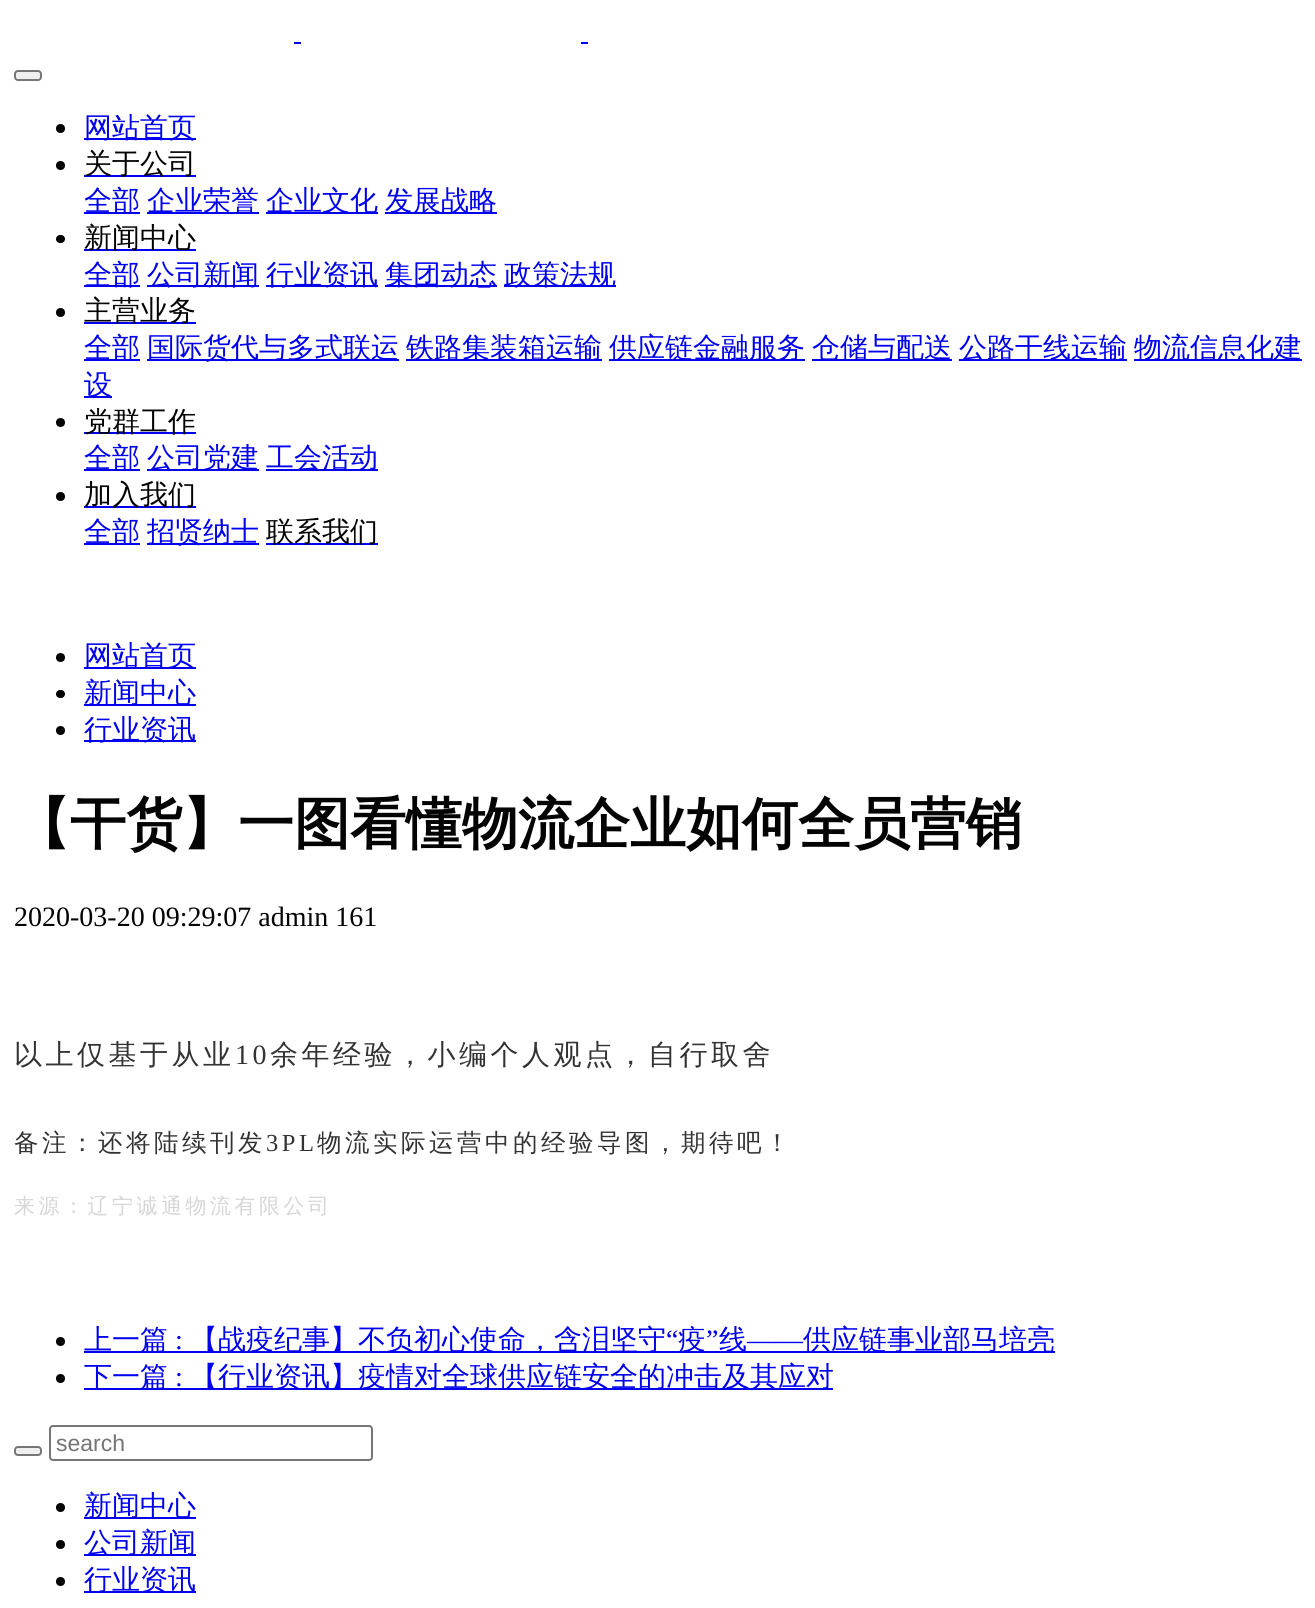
#include <cairo.h>
#include <math.h>
#include <stddef.h>


static void rgb(cairo_t *cr, int r, int g, int b)
{
	cairo_set_source_rgb(cr, r / 255.0, g / 255.0, b / 255.0);
}

static void face(cairo_t *cr, const char *family, double size, int italic, int bold)
{
	cairo_select_font_face(cr, family, italic ? CAIRO_FONT_SLANT_ITALIC : CAIRO_FONT_SLANT_NORMAL,
		bold ? CAIRO_FONT_WEIGHT_BOLD : CAIRO_FONT_WEIGHT_NORMAL);
	cairo_set_font_size(cr, size);
}

static void label(cairo_t *cr, double x, double y, const char *s)
{
	cairo_move_to(cr, x, y);
	cairo_show_text(cr, s);
}

static void tracked(cairo_t *cr, double x, double y, const char *s, double letter, double word)
{
	cairo_move_to(cr, x, y);
	while (*s) {
		char ch[5] = {0};
		int n = 0;
		do ch[n++] = *s++; while ((*s & 0xC0) == 0x80);
		cairo_show_text(cr, ch);
		cairo_rel_move_to(cr, letter + word * (*ch == ' '), 0);
	}
}

static void rect(cairo_t *cr, double x, double y, double w, double h)
{
	cairo_rectangle(cr, x, y, w, h);
	cairo_fill(cr);
}

static void rrect(cairo_t *cr, double x, double y, double w, double h, double r)
{
	cairo_new_sub_path(cr);
	cairo_arc(cr, x + w - r, y + h - r, r, 0, M_PI / 2);
	cairo_arc(cr, x + r, y + h - r, r, M_PI / 2, M_PI);
	cairo_arc(cr, x + r, y + r, r, M_PI, 1.5 * M_PI);
	cairo_arc(cr, x + w - r, y + r, r, 1.5 * M_PI, 2 * M_PI);
	cairo_close_path(cr);
}

static void draw(cairo_t *cr) {
	rgb(cr, 255, 255, 255);
	cairo_paint(cr);
	rgb(cr, 0, 0, 238);
	rect(cr, 294, 42, 7, 2);
	rect(cr, 581, 42, 7, 2);
	rgb(cr, 239, 239, 239);
	rrect(cr, 15, 71, 26, 9, 3);
	cairo_fill_preserve(cr);
	rgb(cr, 118, 118, 118);
	cairo_stroke(cr);
	rgb(cr, 0, 0, 0);
	cairo_arc(cr, 60.5, 128.5, 4.5, 0, 2 * M_PI);
	cairo_fill(cr);
	rgb(cr, 0, 0, 238);
	rect(cr, 84, 138, 112, 2);
	face(cr, "WenQuanYi Zen Hei Medium", 28, 0, 0);
	label(cr, 84, 137, "网站首页");
	rgb(cr, 0, 0, 0);
	cairo_new_path(cr);
	cairo_arc(cr, 60.5, 165.5, 4.5, 0, 2 * M_PI);
	cairo_fill(cr);
	rgb(cr, 0, 0, 238);
	rect(cr, 84, 175, 112, 2);
	rgb(cr, 3, 3, 3);
	label(cr, 84, 173, "关于公司");
	rgb(cr, 0, 0, 238);
	rect(cr, 84, 212, 56, 2);
	label(cr, 84, 210, "全部");
	rect(cr, 147, 212, 112, 2);
	label(cr, 147, 210, "企业荣誉");
	rect(cr, 266, 212, 112, 2);
	label(cr, 266, 210, "企业文化");
	rect(cr, 385, 212, 112, 2);
	label(cr, 385, 210, "发展战略");
	rgb(cr, 0, 0, 0);
	rrect(cr, 56, 235, 9, 8, 4);
	cairo_fill(cr);
	rgb(cr, 0, 0, 238);
	rect(cr, 84, 249, 112, 2);
	rgb(cr, 3, 3, 3);
	label(cr, 84, 247, "新闻中心");
	rgb(cr, 0, 0, 238);
	rect(cr, 84, 285, 56, 2);
	label(cr, 84, 284, "全部");
	rect(cr, 147, 285, 112, 2);
	label(cr, 147, 284, "公司新闻");
	rect(cr, 266, 285, 112, 2);
	label(cr, 266, 284, "行业资讯");
	rect(cr, 385, 285, 112, 2);
	label(cr, 385, 284, "集团动态");
	rect(cr, 504, 285, 112, 2);
	label(cr, 504, 284, "政策法规");
	rgb(cr, 0, 0, 0);
	cairo_new_path(cr);
	cairo_arc(cr, 60.5, 312.5, 4.5, 0, 2 * M_PI);
	cairo_fill(cr);
	rgb(cr, 0, 0, 238);
	rect(cr, 84, 322, 112, 2);
	rgb(cr, 3, 3, 3);
	label(cr, 84, 320, "主营业务");
	rgb(cr, 0, 0, 238);
	rect(cr, 84, 359, 56, 2);
	label(cr, 84, 357, "全部");
	rect(cr, 147, 359, 252, 2);
	label(cr, 147, 357, "国际货代与多式联运");
	rect(cr, 406, 359, 196, 2);
	label(cr, 406, 357, "铁路集装箱运输");
	rect(cr, 609, 359, 196, 2);
	label(cr, 609, 357, "供应链金融服务");
	rect(cr, 812, 359, 140, 2);
	label(cr, 812, 357, "仓储与配送");
	rect(cr, 959, 359, 168, 2);
	label(cr, 959, 357, "公路干线运输");
	rect(cr, 1134, 359, 168, 2);
	label(cr, 1134, 357, "物流信息化建");
	rect(cr, 84, 396, 28, 2);
	label(cr, 84, 394, "设");
	rgb(cr, 0, 0, 0);
	cairo_new_path(cr);
	cairo_arc(cr, 60.5, 422.5, 4.5, 0, 2 * M_PI);
	cairo_fill(cr);
	rgb(cr, 0, 0, 238);
	rect(cr, 84, 432, 112, 2);
	rgb(cr, 3, 3, 3);
	label(cr, 84, 431, "党群工作");
	rgb(cr, 0, 0, 238);
	rect(cr, 84, 469, 56, 2);
	label(cr, 84, 467, "全部");
	rect(cr, 147, 469, 112, 2);
	label(cr, 147, 467, "公司党建");
	rect(cr, 266, 469, 112, 2);
	label(cr, 266, 467, "工会活动");
	rgb(cr, 0, 0, 0);
	cairo_new_path(cr);
	cairo_arc(cr, 60.5, 496.5, 4.5, 0, 2 * M_PI);
	cairo_fill(cr);
	rgb(cr, 0, 0, 238);
	rect(cr, 84, 506, 112, 2);
	rgb(cr, 3, 3, 3);
	label(cr, 84, 504, "加入我们");
	rgb(cr, 0, 0, 238);
	rect(cr, 84, 543, 56, 2);
	label(cr, 84, 541, "全部");
	rect(cr, 147, 543, 112, 2);
	label(cr, 147, 541, "招贤纳士");
	rect(cr, 266, 543, 112, 2);
	rgb(cr, 3, 3, 3);
	label(cr, 266, 541, "联系我们");
	rgb(cr, 0, 0, 0);
	cairo_new_path(cr);
	cairo_arc(cr, 60.5, 657.5, 4.5, 0, 2 * M_PI);
	cairo_fill(cr);
	rgb(cr, 0, 0, 238);
	rect(cr, 84, 667, 112, 2);
	label(cr, 84, 665, "网站首页");
	rgb(cr, 0, 0, 0);
	rrect(cr, 56, 690, 9, 8, 4);
	cairo_fill(cr);
	rgb(cr, 0, 0, 238);
	rect(cr, 84, 704, 112, 2);
	label(cr, 84, 702, "新闻中心");
	rgb(cr, 0, 0, 0);
	cairo_new_path(cr);
	cairo_arc(cr, 60.5, 730.5, 4.5, 0, 2 * M_PI);
	cairo_fill(cr);
	rgb(cr, 0, 0, 238);
	rect(cr, 84, 740, 112, 2);
	label(cr, 84, 739, "行业资讯");
	face(cr, "WenQuanYi Zen Hei", 56, 0, 1);
	rgb(cr, 3, 3, 3);
	label(cr, 14, 843, "【干货】一图看懂物流企业如何全员营销");
	face(cr, "Liberation Serif", 28, 0, 0);
	label(cr, 14, 926, "2020-03-20 09:29:07 admin 161");
	face(cr, "WenQuanYi Zen Hei Medium", 28, 0, 0);
	rgb(cr, 51, 51, 51);
	tracked(cr, 14, 1064, "以上仅基于从业", 3.5, 0);
	face(cr, "Liberation Serif", 28, 0, 0);
	tracked(cr, 235, 1064, "10", 3.5, 0);
	face(cr, "WenQuanYi Zen Hei Medium", 28, 0, 0);
	tracked(cr, 270, 1064, "余年经验，小编个人观点，自行取舍", 3.5, 0);
	face(cr, "WenQuanYi Zen Hei Medium", 24.5, 0, 0);
	tracked(cr, 14, 1151, "备注：还将陆续刊发", 3.5, 0);
	face(cr, "Liberation Serif", 24.5, 0, 0);
	tracked(cr, 266, 1151, "3PL", 3.5, 0);
	face(cr, "WenQuanYi Zen Hei Medium", 24.5, 0, 0);
	tracked(cr, 317, 1151, "物流实际运营中的经验导图，期待吧！", 3.5, 0);
	face(cr, "WenQuanYi Zen Hei Medium", 21, 0, 0);
	rgb(cr, 214, 214, 214);
	tracked(cr, 14, 1213, "来源：辽宁诚通物流有限公司", 3.5, 0);
	rgb(cr, 0, 0, 238);
	rect(cr, 84, 1351, 971, 2);
	face(cr, "WenQuanYi Zen Hei Medium", 28, 0, 0);
	label(cr, 84, 1349, "上一篇");
	label(cr, 190, 1349, "【战疫纪事】不负初心使命，含泪坚守");
	face(cr, "Liberation Serif", 28, 0, 0);
	label(cr, 666, 1349, "“");
	face(cr, "WenQuanYi Zen Hei Medium", 28, 0, 0);
	label(cr, 678, 1349, "疫");
	face(cr, "Liberation Serif", 28, 0, 0);
	label(cr, 706, 1349, "”");
	face(cr, "WenQuanYi Zen Hei Medium", 28, 0, 0);
	label(cr, 719, 1349, "线");
	face(cr, "Liberation Serif", 28, 0, 0);
	label(cr, 747, 1349, "——");
	face(cr, "WenQuanYi Zen Hei Medium", 28, 0, 0);
	label(cr, 803, 1349, "供应链事业部马培亮");
	rgb(cr, 0, 0, 0);
	cairo_new_path(cr);
	cairo_arc(cr, 60.5, 1341.5, 4.5, 0, 2 * M_PI);
	cairo_fill(cr);
	face(cr, "Liberation Serif", 28, 0, 0);
	rgb(cr, 0, 0, 238);
	label(cr, 175, 1349, ":");
	rgb(cr, 0, 0, 0);
	cairo_new_path(cr);
	cairo_arc(cr, 60.5, 1378.5, 4.5, 0, 2 * M_PI);
	cairo_fill(cr);
	rgb(cr, 0, 0, 238);
	rect(cr, 84, 1388, 749, 2);
	face(cr, "WenQuanYi Zen Hei Medium", 28, 0, 0);
	label(cr, 84, 1386, "下一篇");
	face(cr, "Liberation Serif", 28, 0, 0);
	label(cr, 175, 1386, ":");
	face(cr, "WenQuanYi Zen Hei Medium", 28, 0, 0);
	label(cr, 190, 1386, "【行业资讯】疫情对全球供应链安全的冲击及其应对");
	rgb(cr, 239, 239, 239);
	rrect(cr, 15, 1447, 26, 8, 3);
	cairo_fill_preserve(cr);
	rgb(cr, 118, 118, 118);
	cairo_stroke(cr);
	rrect(cr, 50, 1426, 322, 34, 3);
	cairo_stroke(cr);
	face(cr, "Liberation Sans", 23, 0, 0);
	rgb(cr, 117, 117, 117);
	label(cr, 56, 1451, "search");
	rgb(cr, 0, 0, 0);
	cairo_new_path(cr);
	cairo_arc(cr, 60.5, 1507.5, 4.5, 0, 2 * M_PI);
	cairo_fill(cr);
	rgb(cr, 0, 0, 238);
	rect(cr, 84, 1517, 112, 2);
	face(cr, "WenQuanYi Zen Hei Medium", 28, 0, 0);
	label(cr, 84, 1515, "新闻中心");
	rgb(cr, 0, 0, 0);
	cairo_new_path(cr);
	cairo_arc(cr, 60.5, 1544.5, 4.5, 0, 2 * M_PI);
	cairo_fill(cr);
	rgb(cr, 0, 0, 238);
	rect(cr, 84, 1554, 112, 2);
	label(cr, 84, 1552, "公司新闻");
	rgb(cr, 0, 0, 0);
	cairo_new_path(cr);
	cairo_arc(cr, 60.5, 1581.5, 4.5, 0, 2 * M_PI);
	cairo_fill(cr);
	rgb(cr, 0, 0, 238);
	rect(cr, 84, 1591, 112, 2);
	label(cr, 84, 1589, "行业资讯");
}

int main(void) {
	cairo_surface_t *surface = cairo_image_surface_create(CAIRO_FORMAT_RGB24, 1315, 1608);
	cairo_t *cr = cairo_create(surface);
	cairo_font_options_t *options = cairo_font_options_create();
	cairo_font_options_set_hint_metrics(options, CAIRO_HINT_METRICS_OFF);
	cairo_font_options_set_hint_style(options, CAIRO_HINT_STYLE_NONE);
	cairo_set_font_options(cr, options);
	cairo_set_miter_limit(cr, 4);
	draw(cr);
	cairo_surface_write_to_png(surface, "render.png");
	cairo_font_options_destroy(options);
	cairo_destroy(cr);
	cairo_surface_destroy(surface);
	return 0;
}
